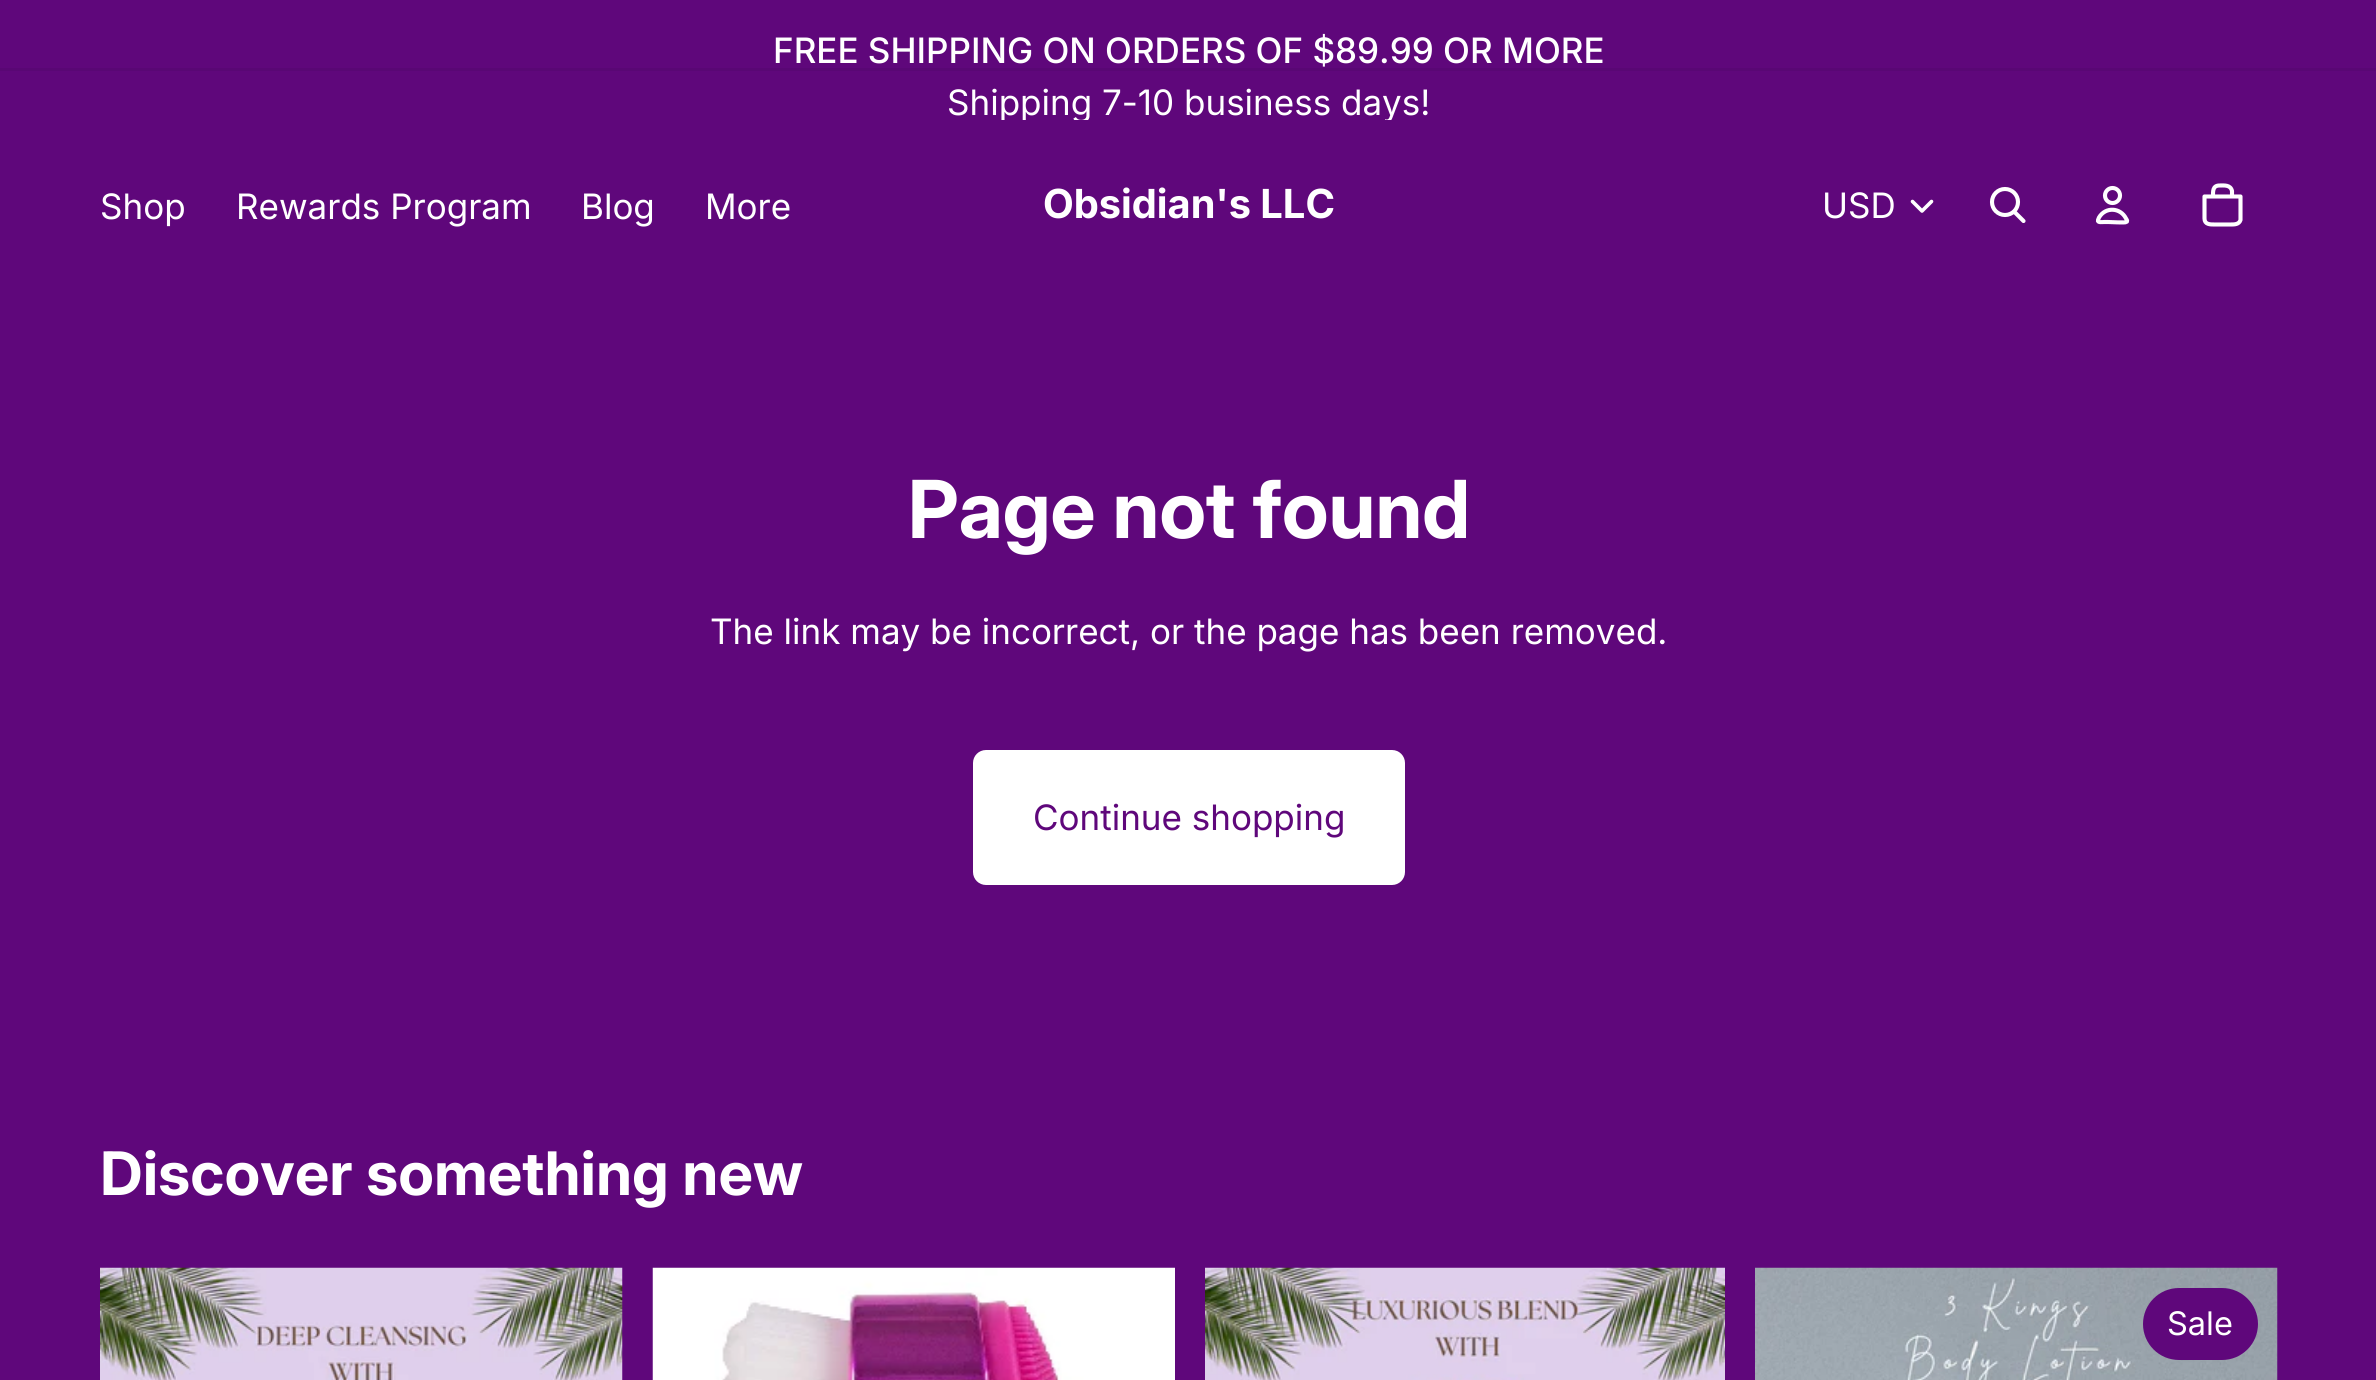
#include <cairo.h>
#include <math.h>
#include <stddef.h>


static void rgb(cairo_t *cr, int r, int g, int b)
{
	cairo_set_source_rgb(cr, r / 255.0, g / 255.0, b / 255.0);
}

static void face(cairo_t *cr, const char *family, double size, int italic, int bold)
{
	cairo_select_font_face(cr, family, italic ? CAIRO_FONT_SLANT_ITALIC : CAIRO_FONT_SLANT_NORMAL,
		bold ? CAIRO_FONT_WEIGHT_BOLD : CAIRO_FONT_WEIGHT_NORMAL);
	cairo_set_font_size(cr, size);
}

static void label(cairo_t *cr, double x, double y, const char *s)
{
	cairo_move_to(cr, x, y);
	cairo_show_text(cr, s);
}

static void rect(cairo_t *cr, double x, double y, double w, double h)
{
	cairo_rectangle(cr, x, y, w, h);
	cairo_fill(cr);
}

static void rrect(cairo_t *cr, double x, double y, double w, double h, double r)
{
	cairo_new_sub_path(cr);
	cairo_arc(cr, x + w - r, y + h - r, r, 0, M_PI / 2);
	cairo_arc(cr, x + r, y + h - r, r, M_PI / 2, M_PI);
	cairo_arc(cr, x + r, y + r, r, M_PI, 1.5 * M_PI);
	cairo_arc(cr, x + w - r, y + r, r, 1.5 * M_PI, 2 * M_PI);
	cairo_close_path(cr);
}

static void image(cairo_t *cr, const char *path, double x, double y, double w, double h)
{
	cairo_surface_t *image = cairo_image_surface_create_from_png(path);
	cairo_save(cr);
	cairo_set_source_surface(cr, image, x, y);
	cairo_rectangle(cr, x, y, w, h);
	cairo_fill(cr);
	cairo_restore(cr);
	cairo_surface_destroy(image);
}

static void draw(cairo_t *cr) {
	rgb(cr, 95, 7, 123);
	cairo_paint(cr);
	rgb(cr, 89, 7, 116);
	rect(cr, 0, 68, 2376, 3);
	face(cr, "Inter Medium", 35, 0, 0);
	rgb(cr, 255, 255, 255);
	label(cr, 773, 63, "FREE SHIPPING ON ORDERS OF $89.99 OR MORE");
	cairo_save(cr);
	cairo_rectangle(cr, 340, 85, 1700, 35);
	cairo_clip(cr);
	face(cr, "Inter", 35, 0, 0);
	label(cr, 947, 115, "Shipping 7-10 business days!");
	cairo_restore(cr);
	face(cr, "Inter", 35, 0, 0);
	label(cr, 100, 219, "Shop");
	label(cr, 236, 219, "Rewards Program");
	label(cr, 581, 219, "Blog");
	label(cr, 705, 219, "More");
	face(cr, "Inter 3", 40, 0, 1);
	label(cr, 1043, 218, "Obsidian's LLC");
	face(cr, "Inter", 35, 0, 0);
	label(cr, 1822, 218, "USD");
	cairo_new_path(cr);
	cairo_move_to(cr, 1931.5, 201.5);
	cairo_line_to(cr, 1922, 211);
	cairo_line_to(cr, 1912.5, 201.5);
	cairo_set_line_width(cr, 3.6);
	cairo_set_line_cap(cr, CAIRO_LINE_CAP_ROUND);
	cairo_set_line_join(cr, CAIRO_LINE_JOIN_ROUND);
	cairo_stroke(cr);
	cairo_arc(cr, 2005, 202, 13, 0, 2 * M_PI);
	cairo_set_line_width(cr, 4.1);
	cairo_set_line_cap(cr, CAIRO_LINE_CAP_BUTT);
	cairo_set_line_join(cr, CAIRO_LINE_JOIN_MITER);
	cairo_stroke(cr);
	cairo_new_path(cr);
	cairo_move_to(cr, 2014.5, 212);
	cairo_line_to(cr, 2023.5, 221);
	cairo_set_line_cap(cr, CAIRO_LINE_CAP_ROUND);
	cairo_set_line_join(cr, CAIRO_LINE_JOIN_ROUND);
	cairo_stroke(cr);
	cairo_arc(cr, 2112.5, 195.5, 7.5, 0, 2 * M_PI);
	cairo_set_line_cap(cr, CAIRO_LINE_CAP_BUTT);
	cairo_set_line_join(cr, CAIRO_LINE_JOIN_MITER);
	cairo_stroke(cr);
	cairo_new_path(cr);
	cairo_move_to(cr, 2099, 217.5);
	cairo_line_to(cr, 2098, 220);
	cairo_curve_to(cr, 2097, 223, 2103, 222, 2104, 222);
	cairo_line_to(cr, 2108, 222);
	cairo_curve_to(cr, 2110.5, 222, 2125.5, 223, 2126.5, 222);
	cairo_line_to(cr, 2127, 221.5);
	cairo_curve_to(cr, 2127.5, 220.5, 2126.5, 219.5, 2126, 218.5);
	cairo_curve_to(cr, 2120.5, 207.5, 2105.5, 206.5, 2099, 217.5);
	cairo_set_line_cap(cr, CAIRO_LINE_CAP_ROUND);
	cairo_set_line_join(cr, CAIRO_LINE_JOIN_ROUND);
	cairo_stroke(cr);
	cairo_new_path(cr);
	cairo_move_to(cr, 2204.5, 196.5);
	cairo_line_to(cr, 2240.5, 196.5);
	cairo_line_to(cr, 2240.5, 220);
	cairo_curve_to(cr, 2239, 224.5, 2234.5, 224.5, 2230.5, 224.5);
	cairo_line_to(cr, 2214.5, 224.5);
	cairo_curve_to(cr, 2210, 224.5, 2204.5, 224.5, 2204.5, 218.5);
	cairo_close_path(cr);
	cairo_move_to(cr, 2219, 185.5);
	cairo_curve_to(cr, 2224, 185.5, 2230.5, 184.5, 2232, 191);
	cairo_line_to(cr, 2232, 196.5);
	cairo_line_to(cr, 2213, 196.5);
	cairo_curve_to(cr, 2213, 191.5, 2212.5, 185.5, 2219.5, 185.5);
	cairo_stroke(cr);
	face(cr, "Inter", 80, 0, 1);
	label(cr, 908, 538, "Page not found");
	face(cr, "Inter", 35, 0, 0);
	label(cr, 710, 644, "The link may be incorrect, or the page has been removed.");
	rrect(cr, 973, 750, 432, 135, 13);
	cairo_fill(cr);
	rgb(cr, 95, 7, 123);
	label(cr, 1033, 830, "Continue shopping");
	face(cr, "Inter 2", 60, 0, 1);
	rgb(cr, 255, 255, 255);
	label(cr, 100, 1195, "Discover something new");
	image(cr, "image0.png", 100, 1267, 523, 113);
	image(cr, "image1.png", 652, 1267, 523, 113);
	image(cr, "image2.png", 1205, 1267, 520, 113);
	image(cr, "image3.png", 1755, 1267, 523, 113);
	rgb(cr, 95, 7, 123);
	rrect(cr, 2143, 1288, 115, 72, 36);
	cairo_fill(cr);
	face(cr, "Inter", 32.5, 0, 0);
	rgb(cr, 255, 255, 255);
	label(cr, 2167, 1335, "Sale");
}

int main(void) {
	cairo_surface_t *surface = cairo_image_surface_create(CAIRO_FORMAT_RGB24, 2376, 1380);
	cairo_t *cr = cairo_create(surface);
	cairo_font_options_t *options = cairo_font_options_create();
	cairo_font_options_set_hint_metrics(options, CAIRO_HINT_METRICS_OFF);
	cairo_font_options_set_hint_style(options, CAIRO_HINT_STYLE_NONE);
	cairo_set_font_options(cr, options);
	cairo_set_miter_limit(cr, 4);
	draw(cr);
	cairo_surface_write_to_png(surface, "render.png");
	cairo_font_options_destroy(options);
	cairo_destroy(cr);
	cairo_surface_destroy(surface);
	return 0;
}
